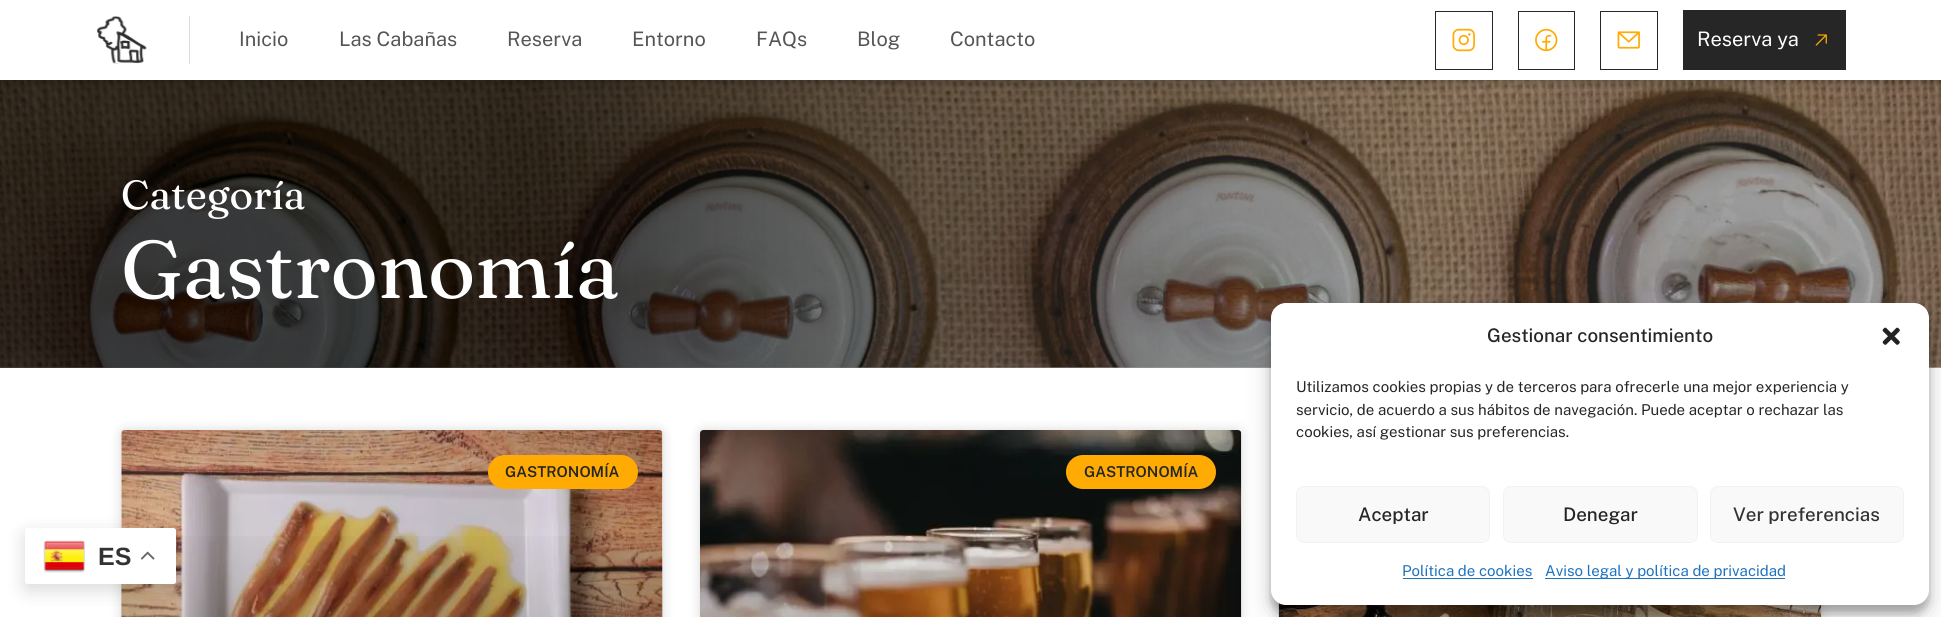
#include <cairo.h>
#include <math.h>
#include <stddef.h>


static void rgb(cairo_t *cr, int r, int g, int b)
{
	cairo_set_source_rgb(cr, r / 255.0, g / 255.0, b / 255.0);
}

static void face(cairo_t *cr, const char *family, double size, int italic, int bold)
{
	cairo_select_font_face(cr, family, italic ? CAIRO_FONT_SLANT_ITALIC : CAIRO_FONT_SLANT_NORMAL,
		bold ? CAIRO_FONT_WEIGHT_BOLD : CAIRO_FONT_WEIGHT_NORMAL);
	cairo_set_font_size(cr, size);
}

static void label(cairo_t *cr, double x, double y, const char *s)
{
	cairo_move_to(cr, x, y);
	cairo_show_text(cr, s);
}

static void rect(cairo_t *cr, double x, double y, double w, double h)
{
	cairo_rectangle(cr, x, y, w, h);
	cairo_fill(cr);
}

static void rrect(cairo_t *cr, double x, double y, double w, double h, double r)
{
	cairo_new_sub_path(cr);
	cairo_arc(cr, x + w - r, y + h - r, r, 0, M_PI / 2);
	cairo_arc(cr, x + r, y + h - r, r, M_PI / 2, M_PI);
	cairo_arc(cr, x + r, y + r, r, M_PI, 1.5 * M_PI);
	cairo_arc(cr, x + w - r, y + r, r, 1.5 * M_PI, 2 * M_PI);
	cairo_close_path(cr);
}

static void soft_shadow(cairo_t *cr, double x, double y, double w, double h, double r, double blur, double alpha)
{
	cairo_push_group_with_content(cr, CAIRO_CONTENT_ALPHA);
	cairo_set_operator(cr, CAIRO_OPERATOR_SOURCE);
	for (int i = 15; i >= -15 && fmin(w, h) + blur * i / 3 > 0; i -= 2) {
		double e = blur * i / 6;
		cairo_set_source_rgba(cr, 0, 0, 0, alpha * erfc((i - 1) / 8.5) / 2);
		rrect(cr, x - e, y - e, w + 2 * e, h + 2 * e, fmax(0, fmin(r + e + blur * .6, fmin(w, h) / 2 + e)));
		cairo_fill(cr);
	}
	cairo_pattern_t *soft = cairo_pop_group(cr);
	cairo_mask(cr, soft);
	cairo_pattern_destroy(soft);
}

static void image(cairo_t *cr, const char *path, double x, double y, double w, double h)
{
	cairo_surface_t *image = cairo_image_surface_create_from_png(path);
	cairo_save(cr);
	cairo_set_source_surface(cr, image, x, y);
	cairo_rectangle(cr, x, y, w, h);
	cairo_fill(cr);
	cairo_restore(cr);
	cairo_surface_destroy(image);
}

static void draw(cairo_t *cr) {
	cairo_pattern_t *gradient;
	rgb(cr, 255, 255, 255);
	cairo_paint(cr);
	image(cr, "image7.png", 0, 80, 1941, 288);
	gradient = cairo_pattern_create_linear(1941, 224, 0, 224);
	cairo_pattern_add_color_stop_rgba(gradient, 0.21, 0.333, 0.333, 0.333, 0.31);
	cairo_pattern_add_color_stop_rgba(gradient, 0.73, 0, 0, 0, 0.71);
	cairo_set_source(cr, gradient);
	cairo_pattern_destroy(gradient);
	rect(cr, 0, 80, 1941, 288);
	cairo_save(cr);
	cairo_rectangle(cr, 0, 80, 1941, 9);
	cairo_clip(cr);
	rgb(cr, 0, 0, 0);
	soft_shadow(cr, 0, 0, 1941, 80, 0, 6, 0.33);
	cairo_restore(cr);
	rgb(cr, 218, 218, 218);
	rect(cr, 189, 16, 1, 48);
	image(cr, "image0.png", 96, 16, 51, 48);
	face(cr, "Public Sans", 20, 0, 0);
	rgb(cr, 85, 85, 85);
	label(cr, 239, 46, "Inicio");
	label(cr, 339, 46, "Las Cabañas");
	label(cr, 507, 46, "Reserva");
	label(cr, 632, 46, "Entorno");
	label(cr, 756, 46, "FAQs");
	label(cr, 857, 46, "Blog");
	label(cr, 950, 46, "Contacto");
	cairo_rectangle(cr, 1435.5, 11.5, 57, 58);
	rgb(cr, 38, 38, 38);
	cairo_set_line_width(cr, 1);
	cairo_stroke(cr);
	image(cr, "image1.png", 1452, 28, 23, 24);
	cairo_rectangle(cr, 1518.5, 11.5, 56, 58);
	cairo_stroke(cr);
	image(cr, "image2.png", 1535, 28, 23, 24);
	cairo_rectangle(cr, 1600.5, 11.5, 57, 58);
	cairo_stroke(cr);
	image(cr, "image3.png", 1617, 31, 23, 18);
	rect(cr, 1683, 10, 163, 60);
	rgb(cr, 255, 255, 255);
	label(cr, 1697, 46, "Reserva ya");
	image(cr, "image4.png", 1815, 34, 12, 12);
	rgb(cr, 0, 0, 0);
	soft_shadow(cr, 121, 430, 542, 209, 4, 6, 0.15);
	rgb(cr, 255, 255, 255);
	rrect(cr, 121, 430, 542, 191, 4);
	cairo_fill(cr);
	image(cr, "image8.png", 121, 430, 542, 187);
	gradient = cairo_pattern_create_linear(392, 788, 392, 430);
	cairo_pattern_add_color_stop_rgba(gradient, 0, 0, 0, 0, 0.35);
	cairo_pattern_add_color_stop_rgba(gradient, 0.75, 0, 0, 0, 0);
	cairo_set_source(cr, gradient);
	cairo_pattern_destroy(gradient);
	rect(cr, 121, 536, 542, 81);
	rgb(cr, 0, 0, 0);
	soft_shadow(cr, 25, 534, 151, 56, 2.5, 9.5, 0.15);
	rgb(cr, 255, 255, 255);
	rrect(cr, 25, 528, 151, 56, 2.5);
	cairo_fill(cr);
	image(cr, "image5.png", 43, 540, 42, 33);
	face(cr, "Liberation Sans", 25, 0, 1);
	rgb(cr, 51, 51, 51);
	label(cr, 98, 565, "ES");
	image(cr, "image6.png", 141, 551, 14, 9);
	face(cr, "Fraunces", 40.5, 0, 0);
	rgb(cr, 255, 255, 255);
	label(cr, 121, 209, "Categoría");
	face(cr, "Fraunces", 81.25, 0, 0);
	label(cr, 121, 298, "Gastronomía");
	rgb(cr, 255, 171, 4);
	rrect(cr, 488, 455, 150, 34, 17);
	cairo_fill(cr);
	face(cr, "Public Sans SemiBold", 15, 0, 0);
	rgb(cr, 38, 38, 38);
	label(cr, 505, 477, "GASTRONOMÍA");
	rgb(cr, 0, 0, 0);
	soft_shadow(cr, 700, 430, 541, 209, 4, 6, 0.15);
	image(cr, "image9.png", 700, 430, 542, 187);
	gradient = cairo_pattern_create_linear(971, 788, 971, 430);
	cairo_pattern_add_color_stop_rgba(gradient, 0, 0, 0, 0, 0.35);
	cairo_pattern_add_color_stop_rgba(gradient, 0.75, 0, 0, 0, 0);
	cairo_set_source(cr, gradient);
	cairo_pattern_destroy(gradient);
	rect(cr, 700, 536, 522, 81);
	rgb(cr, 255, 171, 4);
	rrect(cr, 1066, 455, 150, 34, 17);
	cairo_fill(cr);
	rgb(cr, 38, 38, 38);
	label(cr, 1084, 477, "GASTRONOMÍA");
	rgb(cr, 0, 0, 0);
	soft_shadow(cr, 1279, 430, 542, 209, 4, 6, 0.15);
	image(cr, "image10.png", 1278, 602, 544, 15);
	gradient = cairo_pattern_create_linear(1550, 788, 1550, 430);
	cairo_pattern_add_color_stop_rgba(gradient, 0, 0, 0, 0, 0.35);
	cairo_pattern_add_color_stop_rgba(gradient, 0.75, 0, 0, 0, 0);
	cairo_set_source(cr, gradient);
	cairo_pattern_destroy(gradient);
	rect(cr, 1279, 603, 542, 14);
	rgb(cr, 0, 0, 0);
	soft_shadow(cr, 1271, 310, 658, 303, 15, 4, 0.23);
	soft_shadow(cr, 1271, 315, 658, 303, 15, 12.5, 0.19);
	rgb(cr, 255, 255, 255);
	rrect(cr, 1271, 303, 658, 302, 15);
	cairo_fill(cr);
	face(cr, "Public Sans Medium", 18.75, 0, 0);
	rgb(cr, 38, 38, 38);
	label(cr, 1487, 342, "Gestionar consentimiento");
	image(cr, "image11.png", 1882, 327, 18, 18);
	face(cr, "Public Sans", 15, 0, 0);
	label(cr, 1296, 392, "Utilizamos cookies propias y de terceros para ofrecerle una mejor experiencia y");
	label(cr, 1296, 415, "servicio, de acuerdo a sus hábitos de navegación. Puede aceptar o rechazar las");
	label(cr, 1296, 437, "cookies, así gestionar sus preferencias.");
	rgb(cr, 249, 249, 249);
	rrect(cr, 1296.5, 486.5, 193, 56, 7.5);
	cairo_fill_preserve(cr);
	rgb(cr, 242, 242, 242);
	cairo_stroke(cr);
	face(cr, "Public Sans Medium", 18.75, 0, 0);
	rgb(cr, 38, 38, 38);
	label(cr, 1358, 521, "Aceptar");
	rgb(cr, 249, 249, 249);
	rrect(cr, 1503.5, 486.5, 194, 56, 7.5);
	cairo_fill_preserve(cr);
	rgb(cr, 242, 242, 242);
	cairo_stroke(cr);
	rgb(cr, 38, 38, 38);
	label(cr, 1563, 521, "Denegar");
	rgb(cr, 249, 249, 249);
	rrect(cr, 1710.5, 486.5, 193, 56, 7.5);
	cairo_fill_preserve(cr);
	rgb(cr, 242, 242, 242);
	cairo_stroke(cr);
	rgb(cr, 51, 51, 51);
	label(cr, 1733, 521, "Ver preferencias");
	face(cr, "Public Sans", 15, 0, 0);
	rgb(cr, 30, 115, 190);
	label(cr, 1402, 576, "Política de cookies");
	rect(cr, 1403, 578, 130, 1);
	rect(cr, 1545, 578, 240, 1);
	label(cr, 1545, 576, "Aviso legal y política de privacidad");
}

int main(void) {
	cairo_surface_t *surface = cairo_image_surface_create(CAIRO_FORMAT_RGB24, 1941, 617);
	cairo_t *cr = cairo_create(surface);
	cairo_font_options_t *options = cairo_font_options_create();
	cairo_font_options_set_hint_metrics(options, CAIRO_HINT_METRICS_OFF);
	cairo_font_options_set_hint_style(options, CAIRO_HINT_STYLE_NONE);
	cairo_set_font_options(cr, options);
	cairo_set_miter_limit(cr, 4);
	draw(cr);
	cairo_surface_write_to_png(surface, "render.png");
	cairo_font_options_destroy(options);
	cairo_destroy(cr);
	cairo_surface_destroy(surface);
	return 0;
}
